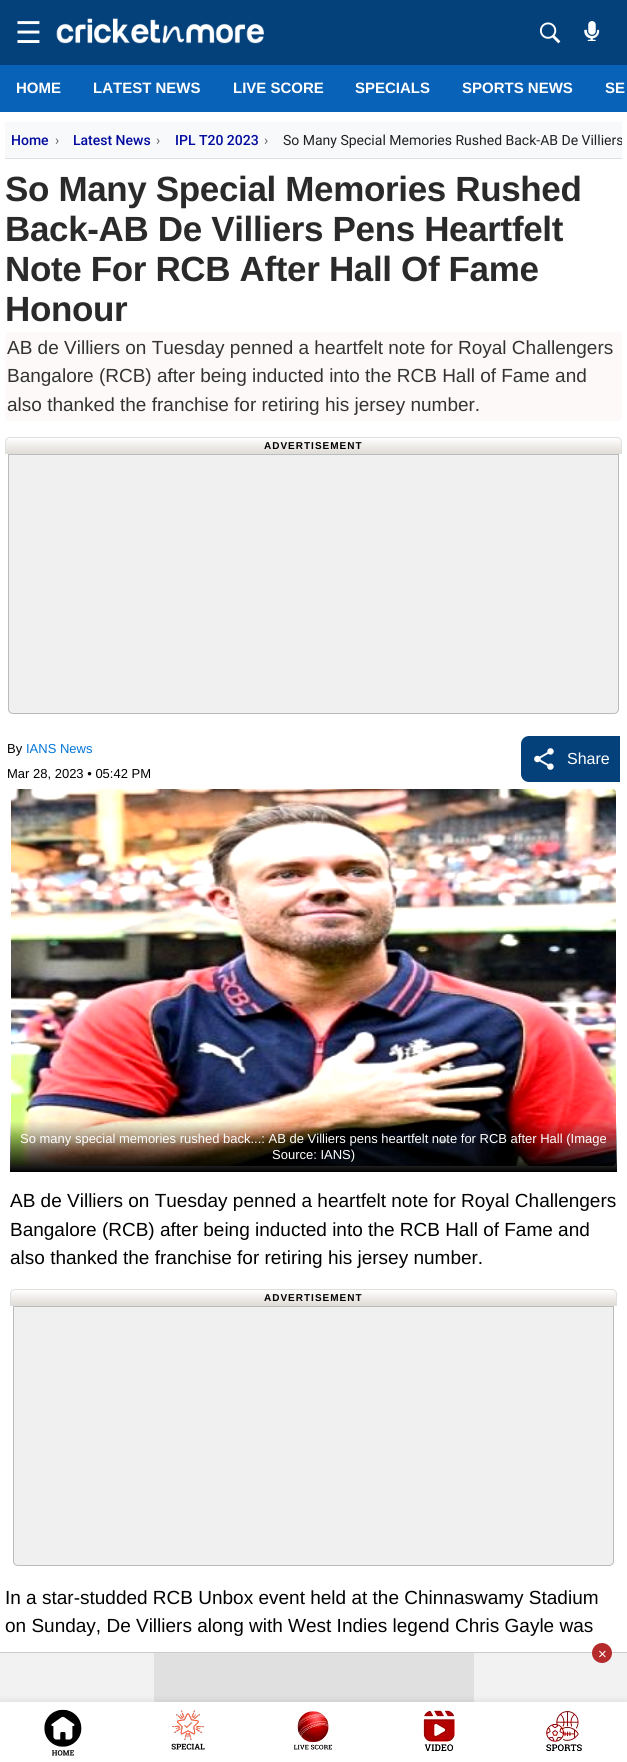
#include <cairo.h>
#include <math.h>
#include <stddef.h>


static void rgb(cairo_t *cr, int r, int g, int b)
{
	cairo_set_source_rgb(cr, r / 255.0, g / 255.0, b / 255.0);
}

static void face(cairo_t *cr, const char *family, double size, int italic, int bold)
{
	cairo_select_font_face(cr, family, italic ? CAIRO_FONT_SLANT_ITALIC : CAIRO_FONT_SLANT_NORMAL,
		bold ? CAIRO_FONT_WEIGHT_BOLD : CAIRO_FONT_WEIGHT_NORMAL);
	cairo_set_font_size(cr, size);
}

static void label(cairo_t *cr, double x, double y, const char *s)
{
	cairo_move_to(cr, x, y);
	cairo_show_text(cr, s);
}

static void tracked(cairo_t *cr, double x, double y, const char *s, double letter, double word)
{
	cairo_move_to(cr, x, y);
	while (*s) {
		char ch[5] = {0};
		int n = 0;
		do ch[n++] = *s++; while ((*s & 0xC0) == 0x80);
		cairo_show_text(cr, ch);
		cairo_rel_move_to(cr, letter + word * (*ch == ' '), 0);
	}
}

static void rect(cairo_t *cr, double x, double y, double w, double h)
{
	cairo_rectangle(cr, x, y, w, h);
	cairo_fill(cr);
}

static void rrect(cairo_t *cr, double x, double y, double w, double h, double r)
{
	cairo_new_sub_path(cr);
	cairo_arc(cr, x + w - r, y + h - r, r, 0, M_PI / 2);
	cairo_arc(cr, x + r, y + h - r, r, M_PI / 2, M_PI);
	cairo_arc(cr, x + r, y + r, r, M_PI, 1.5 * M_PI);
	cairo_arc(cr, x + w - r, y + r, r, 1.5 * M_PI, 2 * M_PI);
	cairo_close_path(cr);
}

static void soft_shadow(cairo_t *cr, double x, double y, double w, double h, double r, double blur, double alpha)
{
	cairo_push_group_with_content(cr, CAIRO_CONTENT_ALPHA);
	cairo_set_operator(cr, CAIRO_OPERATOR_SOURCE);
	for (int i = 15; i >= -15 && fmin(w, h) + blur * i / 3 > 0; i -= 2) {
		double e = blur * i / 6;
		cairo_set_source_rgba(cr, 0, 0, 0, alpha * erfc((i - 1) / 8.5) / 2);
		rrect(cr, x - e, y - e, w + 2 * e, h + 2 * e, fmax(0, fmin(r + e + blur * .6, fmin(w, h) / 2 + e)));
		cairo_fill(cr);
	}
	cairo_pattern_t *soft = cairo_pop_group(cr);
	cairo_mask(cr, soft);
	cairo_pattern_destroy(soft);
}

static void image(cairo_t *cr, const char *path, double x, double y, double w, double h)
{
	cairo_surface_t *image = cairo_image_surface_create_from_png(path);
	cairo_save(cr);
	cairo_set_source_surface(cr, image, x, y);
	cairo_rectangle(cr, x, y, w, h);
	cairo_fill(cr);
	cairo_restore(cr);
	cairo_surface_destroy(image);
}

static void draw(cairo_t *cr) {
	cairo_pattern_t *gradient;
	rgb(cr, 255, 255, 255);
	cairo_paint(cr);
	rgb(cr, 4, 65, 123);
	rect(cr, 0, 0, 627, 65);
	face(cr, "DejaVu Sans", 30, 0, 0);
	rgb(cr, 255, 255, 255);
	label(cr, 15, 43, "☰");
	image(cr, "image0.png", 56, 18, 208, 26);
	image(cr, "image1.png", 539, 22, 22, 22);
	image(cr, "image2.png", 584, 21, 16, 20);
	rgb(cr, 8, 98, 183);
	rect(cr, 0, 65, 627, 47);
	face(cr, "Liberation Sans", 15, 0, 1);
	rgb(cr, 255, 255, 255);
	label(cr, 16, 93, "HOME");
	label(cr, 93, 93, "LATEST NEWS");
	label(cr, 233, 93, "LIVE SCORE");
	label(cr, 355, 93, "SPECIALS");
	label(cr, 462, 93, "SPORTS NEWS");
	label(cr, 605, 93, "SE");
	rgb(cr, 248, 249, 250);
	rect(cr, 5, 122, 617, 36);
	rgb(cr, 224, 224, 224);
	rect(cr, 5, 158, 617, 1);
	face(cr, "Roboto Medium", 14, 0, 0);
	rgb(cr, 1, 10, 158);
	label(cr, 11, 145, "Home");
	face(cr, "Roboto", 14, 0, 0);
	rgb(cr, 95, 99, 104);
	label(cr, 55, 145, "›");
	face(cr, "Roboto Medium", 14, 0, 0);
	rgb(cr, 1, 10, 158);
	label(cr, 73, 145, "Latest News");
	face(cr, "Roboto", 14, 0, 0);
	rgb(cr, 95, 99, 104);
	label(cr, 156, 145, "›");
	face(cr, "Roboto Medium", 14, 0, 0);
	rgb(cr, 1, 10, 158);
	label(cr, 175, 145, "IPL T20 2023");
	face(cr, "Roboto", 14, 0, 0);
	rgb(cr, 95, 99, 104);
	label(cr, 264, 145, "›");
	cairo_save(cr);
	cairo_rectangle(cr, 5, 122, 617, 36);
	cairo_clip(cr);
	rgb(cr, 32, 33, 36);
	label(cr, 283, 145, "So Many Special Memories Rushed Back-AB De Villiers");
	cairo_restore(cr);
	face(cr, "Liberation Sans", 35, 0, 1);
	rgb(cr, 42, 42, 42);
	tracked(cr, 5, 201, "So Many Special Memories Rushed", -0.35, 0);
	tracked(cr, 5, 241, "Back-AB De Villiers Pens Heartfelt", -0.35, 0);
	tracked(cr, 5, 281, "Note For RCB After Hall Of Fame", -0.35, 0);
	tracked(cr, 5, 321, "Honour", -0.35, 0);
	rgb(cr, 253, 249, 249);
	rrect(cr, 5, 332, 617, 89, 4);
	cairo_fill(cr);
	face(cr, "Liberation Sans", 19, 0, 0);
	rgb(cr, 51, 51, 51);
	label(cr, 7, 354, "AB de Villiers on Tuesday penned a heartfelt note for Royal Challengers");
	label(cr, 7, 382, "Bangalore (RCB) after being inducted into the RCB Hall of Fame and");
	label(cr, 7, 411, "also thanked the franchise for retiring his jersey number.");
	cairo_save(cr);
	cairo_new_path(cr);
	cairo_move_to(cr, 10, 437);
	cairo_line_to(cr, 617, 437);
	cairo_curve_to(cr, 620, 437, 622, 439, 622, 442);
	cairo_line_to(cr, 622, 454);
	cairo_line_to(cr, 5, 454);
	cairo_line_to(cr, 5, 442);
	cairo_curve_to(cr, 5, 439, 7, 437, 10, 437);
	cairo_close_path(cr);
	cairo_clip(cr);
	gradient = cairo_pattern_create_linear(314, 438, 314, 453);
	cairo_pattern_add_color_stop_rgba(gradient, 0, 1, 1, 1, 1);
	cairo_pattern_add_color_stop_rgba(gradient, 1, 0.882, 0.863, 0.839, 1);
	cairo_set_source(cr, gradient);
	cairo_pattern_destroy(gradient);
	rect(cr, 5, 438, 617, 15);
	cairo_restore(cr);
	cairo_new_path(cr);
	cairo_move_to(cr, 10, 437.5);
	cairo_line_to(cr, 617, 437.5);
	cairo_curve_to(cr, 619.5, 437.5, 621.5, 439.5, 621.5, 442);
	cairo_line_to(cr, 621.5, 453.5);
	cairo_line_to(cr, 5.5, 453.5);
	cairo_line_to(cr, 5.5, 442);
	cairo_curve_to(cr, 5.5, 439.5, 7.5, 437.5, 10, 437.5);
	cairo_close_path(cr);
	rgb(cr, 223, 223, 223);
	cairo_set_line_width(cr, 1);
	cairo_stroke(cr);
	face(cr, "Liberation Sans", 10, 0, 1);
	rgb(cr, 0, 0, 0);
	tracked(cr, 264, 449, "ADVERTISEMENT", 1, 0);
	rgb(cr, 240, 240, 240);
	cairo_new_path(cr);
	cairo_move_to(cr, 8.5, 454.5);
	cairo_line_to(cr, 618.5, 454.5);
	cairo_line_to(cr, 618.5, 709);
	cairo_curve_to(cr, 618.5, 711.5, 616.5, 713.5, 614, 713.5);
	cairo_line_to(cr, 13, 713.5);
	cairo_curve_to(cr, 10.5, 713.5, 8.5, 711.5, 8.5, 709);
	cairo_close_path(cr);
	cairo_fill_preserve(cr);
	rgb(cr, 187, 187, 187);
	cairo_stroke(cr);
	face(cr, "Liberation Sans", 13, 0, 0);
	rgb(cr, 0, 0, 0);
	label(cr, 7, 753, "By");
	rgb(cr, 2, 117, 216);
	label(cr, 26, 753, "IANS News");
	rgb(cr, 0, 0, 0);
	label(cr, 7, 778, "Mar 28, 2023 • 05:42 PM");
	rgb(cr, 4, 65, 123);
	cairo_new_path(cr);
	cairo_move_to(cr, 529, 736);
	cairo_line_to(cr, 620, 736);
	cairo_line_to(cr, 620, 782);
	cairo_line_to(cr, 529, 782);
	cairo_curve_to(cr, 524.5, 782, 521, 778.5, 521, 774);
	cairo_line_to(cr, 521, 744);
	cairo_curve_to(cr, 521, 739.5, 524.5, 736, 529, 736);
	cairo_close_path(cr);
	cairo_fill(cr);
	image(cr, "image3.png", 534, 748, 20, 22);
	face(cr, "Liberation Sans", 16, 0, 0);
	rgb(cr, 255, 255, 255);
	label(cr, 567, 764, "Share");
	image(cr, "image4.png", 11, 789, 605, 377);
	gradient = cairo_pattern_create_linear(314, 1121, 314, 1172);
	cairo_pattern_add_color_stop_rgba(gradient, 0, 0, 0, 0, 0);
	cairo_pattern_add_color_stop_rgba(gradient, 1, 0, 0, 0, 1);
	cairo_set_source(cr, gradient);
	cairo_pattern_destroy(gradient);
	rect(cr, 10, 1122, 607, 50);
	face(cr, "Liberation Sans", 13, 0, 0);
	rgb(cr, 255, 255, 255);
	label(cr, 20, 1143, "So many special memories rushed back...: AB de Villiers pens heartfelt note for RCB after Hall (Image");
	label(cr, 272, 1159, "Source: IANS)");
	face(cr, "Liberation Sans", 19, 0, 0);
	rgb(cr, 0, 0, 0);
	label(cr, 10, 1207, "AB de Villiers on Tuesday penned a heartfelt note for Royal Challengers");
	label(cr, 10, 1236, "Bangalore (RCB) after being inducted into the RCB Hall of Fame and");
	label(cr, 10, 1264, "also thanked the franchise for retiring his jersey number.");
	cairo_save(cr);
	cairo_new_path(cr);
	cairo_move_to(cr, 15, 1289);
	cairo_line_to(cr, 612, 1289);
	cairo_curve_to(cr, 615, 1289, 617, 1291, 617, 1294);
	cairo_line_to(cr, 617, 1306);
	cairo_line_to(cr, 10, 1306);
	cairo_line_to(cr, 10, 1294);
	cairo_curve_to(cr, 10, 1291, 12, 1289, 15, 1289);
	cairo_close_path(cr);
	cairo_clip(cr);
	gradient = cairo_pattern_create_linear(314, 1290, 314, 1305);
	cairo_pattern_add_color_stop_rgba(gradient, 0, 1, 1, 1, 1);
	cairo_pattern_add_color_stop_rgba(gradient, 1, 0.882, 0.863, 0.839, 1);
	cairo_set_source(cr, gradient);
	cairo_pattern_destroy(gradient);
	rect(cr, 10, 1290, 607, 15);
	cairo_restore(cr);
	cairo_new_path(cr);
	cairo_move_to(cr, 15, 1289.5);
	cairo_line_to(cr, 612, 1289.5);
	cairo_curve_to(cr, 614.5, 1289.5, 616.5, 1291.5, 616.5, 1294);
	cairo_line_to(cr, 616.5, 1305.5);
	cairo_line_to(cr, 10.5, 1305.5);
	cairo_line_to(cr, 10.5, 1294);
	cairo_curve_to(cr, 10.5, 1291.5, 12.5, 1289.5, 15, 1289.5);
	cairo_close_path(cr);
	rgb(cr, 223, 223, 223);
	cairo_stroke(cr);
	face(cr, "Liberation Sans", 10, 0, 1);
	rgb(cr, 0, 0, 0);
	tracked(cr, 264, 1301, "ADVERTISEMENT", 1, 0);
	rgb(cr, 240, 240, 240);
	cairo_new_path(cr);
	cairo_move_to(cr, 13.5, 1306.5);
	cairo_line_to(cr, 613.5, 1306.5);
	cairo_line_to(cr, 613.5, 1561);
	cairo_curve_to(cr, 613.5, 1563.5, 611.5, 1565.5, 609, 1565.5);
	cairo_line_to(cr, 18, 1565.5);
	cairo_curve_to(cr, 15.5, 1565.5, 13.5, 1563.5, 13.5, 1561);
	cairo_close_path(cr);
	cairo_fill_preserve(cr);
	rgb(cr, 187, 187, 187);
	cairo_stroke(cr);
	face(cr, "Liberation Sans", 19, 0, 0);
	rgb(cr, 0, 0, 0);
	label(cr, 5, 1604, "In a star-studded RCB Unbox event held at the Chinnaswamy Stadium");
	label(cr, 5, 1632, "on Sunday, De Villiers along with West Indies legend Chris Gayle was");
	rgb(cr, 242, 242, 242);
	rect(cr, 0, 1653, 627, 49);
	rgb(cr, 204, 204, 204);
	rect(cr, 0, 1652, 627, 1);
	rgb(cr, 224, 224, 224);
	rect(cr, 154, 1653, 320, 49);
	rgb(cr, 181, 42, 42);
	cairo_new_path(cr);
	cairo_arc(cr, 602, 1653, 10, 0, 2 * M_PI);
	cairo_fill(cr);
	face(cr, "Liberation Sans", 15, 0, 0);
	rgb(cr, 255, 255, 255);
	label(cr, 598, 1659, "×");
	rgb(cr, 0, 0, 0);
	soft_shadow(cr, 0, 1701, 627, 60, 0, 3, 0.1);
	rgb(cr, 255, 255, 255);
	rect(cr, 0, 1702, 627, 60);
	image(cr, "image5.png", 44, 1709, 38, 47);
	image(cr, "image6.png", 171, 1710, 34, 40);
	image(cr, "image7.png", 294, 1711, 38, 39);
	image(cr, "image8.png", 423, 1710, 32, 41);
	image(cr, "image9.png", 546, 1711, 36, 40);
}

int main(void) {
	cairo_surface_t *surface = cairo_image_surface_create(CAIRO_FORMAT_RGB24, 627, 1762);
	cairo_t *cr = cairo_create(surface);
	cairo_font_options_t *options = cairo_font_options_create();
	cairo_font_options_set_hint_metrics(options, CAIRO_HINT_METRICS_OFF);
	cairo_font_options_set_hint_style(options, CAIRO_HINT_STYLE_NONE);
	cairo_set_font_options(cr, options);
	cairo_set_miter_limit(cr, 4);
	draw(cr);
	cairo_surface_write_to_png(surface, "render.png");
	cairo_font_options_destroy(options);
	cairo_destroy(cr);
	cairo_surface_destroy(surface);
	return 0;
}
